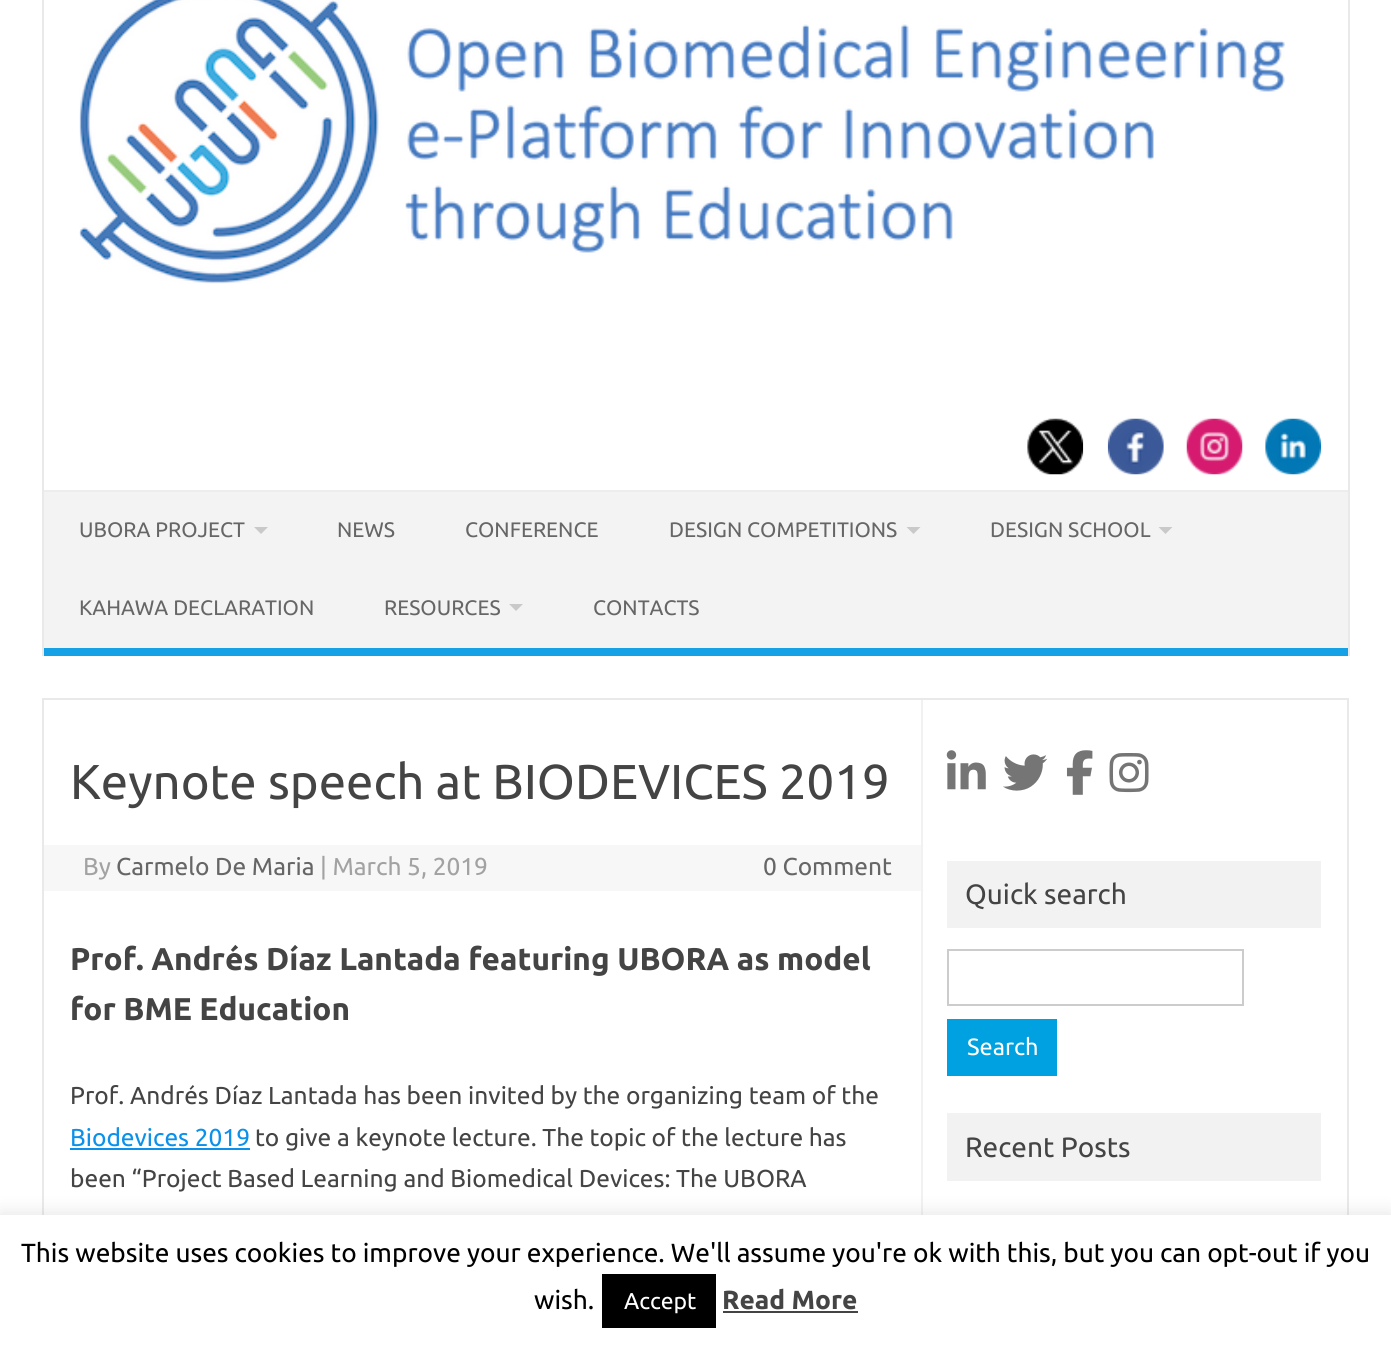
#include <cairo.h>
#include <math.h>
#include <stddef.h>


static void rgb(cairo_t *cr, int r, int g, int b)
{
	cairo_set_source_rgb(cr, r / 255.0, g / 255.0, b / 255.0);
}

static void face(cairo_t *cr, const char *family, double size, int italic, int bold)
{
	cairo_select_font_face(cr, family, italic ? CAIRO_FONT_SLANT_ITALIC : CAIRO_FONT_SLANT_NORMAL,
		bold ? CAIRO_FONT_WEIGHT_BOLD : CAIRO_FONT_WEIGHT_NORMAL);
	cairo_set_font_size(cr, size);
}

static void label(cairo_t *cr, double x, double y, const char *s)
{
	cairo_move_to(cr, x, y);
	cairo_show_text(cr, s);
}

static void rect(cairo_t *cr, double x, double y, double w, double h)
{
	cairo_rectangle(cr, x, y, w, h);
	cairo_fill(cr);
}

static void rrect(cairo_t *cr, double x, double y, double w, double h, double r)
{
	cairo_new_sub_path(cr);
	cairo_arc(cr, x + w - r, y + h - r, r, 0, M_PI / 2);
	cairo_arc(cr, x + r, y + h - r, r, M_PI / 2, M_PI);
	cairo_arc(cr, x + r, y + r, r, M_PI, 1.5 * M_PI);
	cairo_arc(cr, x + w - r, y + r, r, 1.5 * M_PI, 2 * M_PI);
	cairo_close_path(cr);
}

static void soft_shadow(cairo_t *cr, double x, double y, double w, double h, double r, double blur, double alpha)
{
	cairo_push_group_with_content(cr, CAIRO_CONTENT_ALPHA);
	cairo_set_operator(cr, CAIRO_OPERATOR_SOURCE);
	for (int i = 15; i >= -15 && fmin(w, h) + blur * i / 3 > 0; i -= 2) {
		double e = blur * i / 6;
		cairo_set_source_rgba(cr, 0, 0, 0, alpha * erfc((i - 1) / 8.5) / 2);
		rrect(cr, x - e, y - e, w + 2 * e, h + 2 * e, fmax(0, fmin(r + e + blur * .6, fmin(w, h) / 2 + e)));
		cairo_fill(cr);
	}
	cairo_pattern_t *soft = cairo_pop_group(cr);
	cairo_mask(cr, soft);
	cairo_pattern_destroy(soft);
}

static void image(cairo_t *cr, const char *path, double x, double y, double w, double h)
{
	cairo_surface_t *image = cairo_image_surface_create_from_png(path);
	cairo_save(cr);
	cairo_set_source_surface(cr, image, x, y);
	cairo_rectangle(cr, x, y, w, h);
	cairo_fill(cr);
	cairo_restore(cr);
	cairo_surface_destroy(image);
}

static void draw(cairo_t *cr) {
	rgb(cr, 255, 255, 255);
	cairo_paint(cr);
	rgb(cr, 233, 233, 233);
	rect(cr, 1348, 0, 2, 656);
	rect(cr, 42, 0, 2, 656);
	image(cr, "image0.png", 79, 0, 1206, 284);
	image(cr, "image1.png", 1027, 418, 57, 57);
	image(cr, "image2.png", 1107, 418, 57, 57);
	image(cr, "image3.png", 1186, 418, 57, 57);
	image(cr, "image4.png", 1265, 418, 57, 57);
	rgb(cr, 243, 243, 243);
	rect(cr, 44, 492, 1304, 156);
	rgb(cr, 237, 237, 237);
	rect(cr, 44, 490, 1304, 2);
	rgb(cr, 22, 161, 231);
	rect(cr, 44, 648, 1304, 8);
	face(cr, "Ubuntu", 21, 0, 0);
	rgb(cr, 102, 102, 102);
	label(cr, 79, 537, "UBORA PROJECT");
	rgb(cr, 201, 201, 201);
	cairo_new_path(cr);
	cairo_move_to(cr, 254, 527);
	cairo_line_to(cr, 268, 527);
	cairo_line_to(cr, 261, 534);
	cairo_close_path(cr);
	cairo_fill(cr);
	rgb(cr, 102, 102, 102);
	label(cr, 337, 537, "NEWS");
	label(cr, 465, 537, "CONFERENCE");
	label(cr, 669, 537, "DESIGN COMPETITIONS");
	rgb(cr, 201, 201, 201);
	cairo_new_path(cr);
	cairo_move_to(cr, 906.5, 527);
	cairo_line_to(cr, 920.5, 527);
	cairo_line_to(cr, 913.5, 534);
	cairo_close_path(cr);
	cairo_fill(cr);
	rgb(cr, 102, 102, 102);
	label(cr, 990, 537, "DESIGN SCHOOL");
	rgb(cr, 201, 201, 201);
	cairo_new_path(cr);
	cairo_move_to(cr, 1158.5, 527);
	cairo_line_to(cr, 1172.5, 527);
	cairo_line_to(cr, 1165.5, 534);
	cairo_close_path(cr);
	cairo_fill(cr);
	rgb(cr, 102, 102, 102);
	label(cr, 79, 615, "KAHAWA DECLARATION");
	label(cr, 384, 615, "RESOURCES");
	rgb(cr, 201, 201, 201);
	cairo_new_path(cr);
	cairo_move_to(cr, 509, 604);
	cairo_line_to(cr, 523, 604);
	cairo_line_to(cr, 516, 611);
	cairo_close_path(cr);
	cairo_fill(cr);
	rgb(cr, 102, 102, 102);
	label(cr, 593, 615, "CONTACTS");
	cairo_rectangle(cr, 43, 699, 1305, 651);
	rgb(cr, 233, 233, 233);
	cairo_stroke(cr);
	rgb(cr, 241, 241, 241);
	rect(cr, 921, 700, 2, 515);
	face(cr, "Ubuntu", 49, 0, 0);
	rgb(cr, 68, 68, 68);
	label(cr, 70, 799, "Keynote speech at BIODEVICES 2019");
	rgb(cr, 247, 247, 247);
	rect(cr, 44, 845, 877, 46);
	face(cr, "Ubuntu", 24.5, 0, 0);
	rgb(cr, 162, 162, 162);
	label(cr, 83, 875, "By");
	rgb(cr, 102, 102, 102);
	label(cr, 116, 875, "Carmelo De Maria");
	rgb(cr, 162, 162, 162);
	label(cr, 320, 875, "| March 5, 2019");
	rgb(cr, 102, 102, 102);
	label(cr, 763, 875, "0 Comment");
	face(cr, "Ubuntu", 31.5, 0, 1);
	rgb(cr, 68, 68, 68);
	label(cr, 70, 970, "Prof. Andrés Díaz Lantada featuring UBORA as model");
	label(cr, 70, 1020, "for BME Education");
	face(cr, "Ubuntu", 24.5, 0, 0);
	label(cr, 70, 1104, "Prof. Andrés Díaz Lantada has been invited by the organizing team of the");
	rgb(cr, 11, 145, 234);
	label(cr, 70, 1146, "Biodevices 2019");
	rect(cr, 70, 1148, 180, 2);
	rgb(cr, 68, 68, 68);
	label(cr, 255, 1146, "to give a keynote lecture. The topic of the lecture has");
	label(cr, 70, 1187, "been “Project Based Learning and Biomedical Devices: The UBORA");
	image(cr, "image5.png", 946, 750, 40, 40);
	image(cr, "image6.png", 1003, 754, 45, 37);
	image(cr, "image7.png", 1066, 750, 27, 45);
	image(cr, "image8.png", 1109, 753, 40, 40);
	rgb(cr, 242, 242, 242);
	rect(cr, 947, 861, 374, 67);
	face(cr, "Ubuntu", 28, 0, 0);
	rgb(cr, 68, 68, 68);
	label(cr, 965, 904, "Quick search");
	cairo_rectangle(cr, 948, 950, 295, 55);
	rgb(cr, 204, 204, 204);
	cairo_stroke(cr);
	rgb(cr, 0, 161, 224);
	rect(cr, 947, 1019, 110, 57);
	face(cr, "Ubuntu", 23.5, 0, 0);
	rgb(cr, 255, 255, 255);
	label(cr, 967, 1055, "Search");
	rgb(cr, 242, 242, 242);
	rect(cr, 947, 1113, 374, 68);
	face(cr, "Ubuntu", 28, 0, 0);
	rgb(cr, 68, 68, 68);
	label(cr, 965, 1157, "Recent Posts");
	rgb(cr, 172, 171, 171);
	soft_shadow(cr, 0, 1213, 1391, 135, 0, 9, 0.3);
	rgb(cr, 255, 255, 255);
	rect(cr, 0, 1215, 1391, 134);
	face(cr, "Ubuntu", 26.25, 0, 0);
	rgb(cr, 0, 0, 0);
	label(cr, 21, 1262, "This website uses cookies to improve your experience. We'll assume you're ok with this, but you can opt-out if you");
	label(cr, 534, 1309, "wish.");
	rect(cr, 602, 1274, 114, 54);
	face(cr, "Ubuntu", 23, 0, 0);
	rgb(cr, 255, 255, 255);
	label(cr, 624, 1309, "Accept");
	face(cr, "Ubuntu", 26.25, 0, 1);
	rgb(cr, 68, 68, 68);
	label(cr, 722, 1309, "Read More");
	rect(cr, 723, 1311, 135, 2);
}

int main(void) {
	cairo_surface_t *surface = cairo_image_surface_create(CAIRO_FORMAT_RGB24, 1391, 1349);
	cairo_t *cr = cairo_create(surface);
	cairo_font_options_t *options = cairo_font_options_create();
	cairo_font_options_set_hint_metrics(options, CAIRO_HINT_METRICS_OFF);
	cairo_font_options_set_hint_style(options, CAIRO_HINT_STYLE_NONE);
	cairo_set_font_options(cr, options);
	cairo_set_miter_limit(cr, 4);
	draw(cr);
	cairo_surface_write_to_png(surface, "render.png");
	cairo_font_options_destroy(options);
	cairo_destroy(cr);
	cairo_surface_destroy(surface);
	return 0;
}
